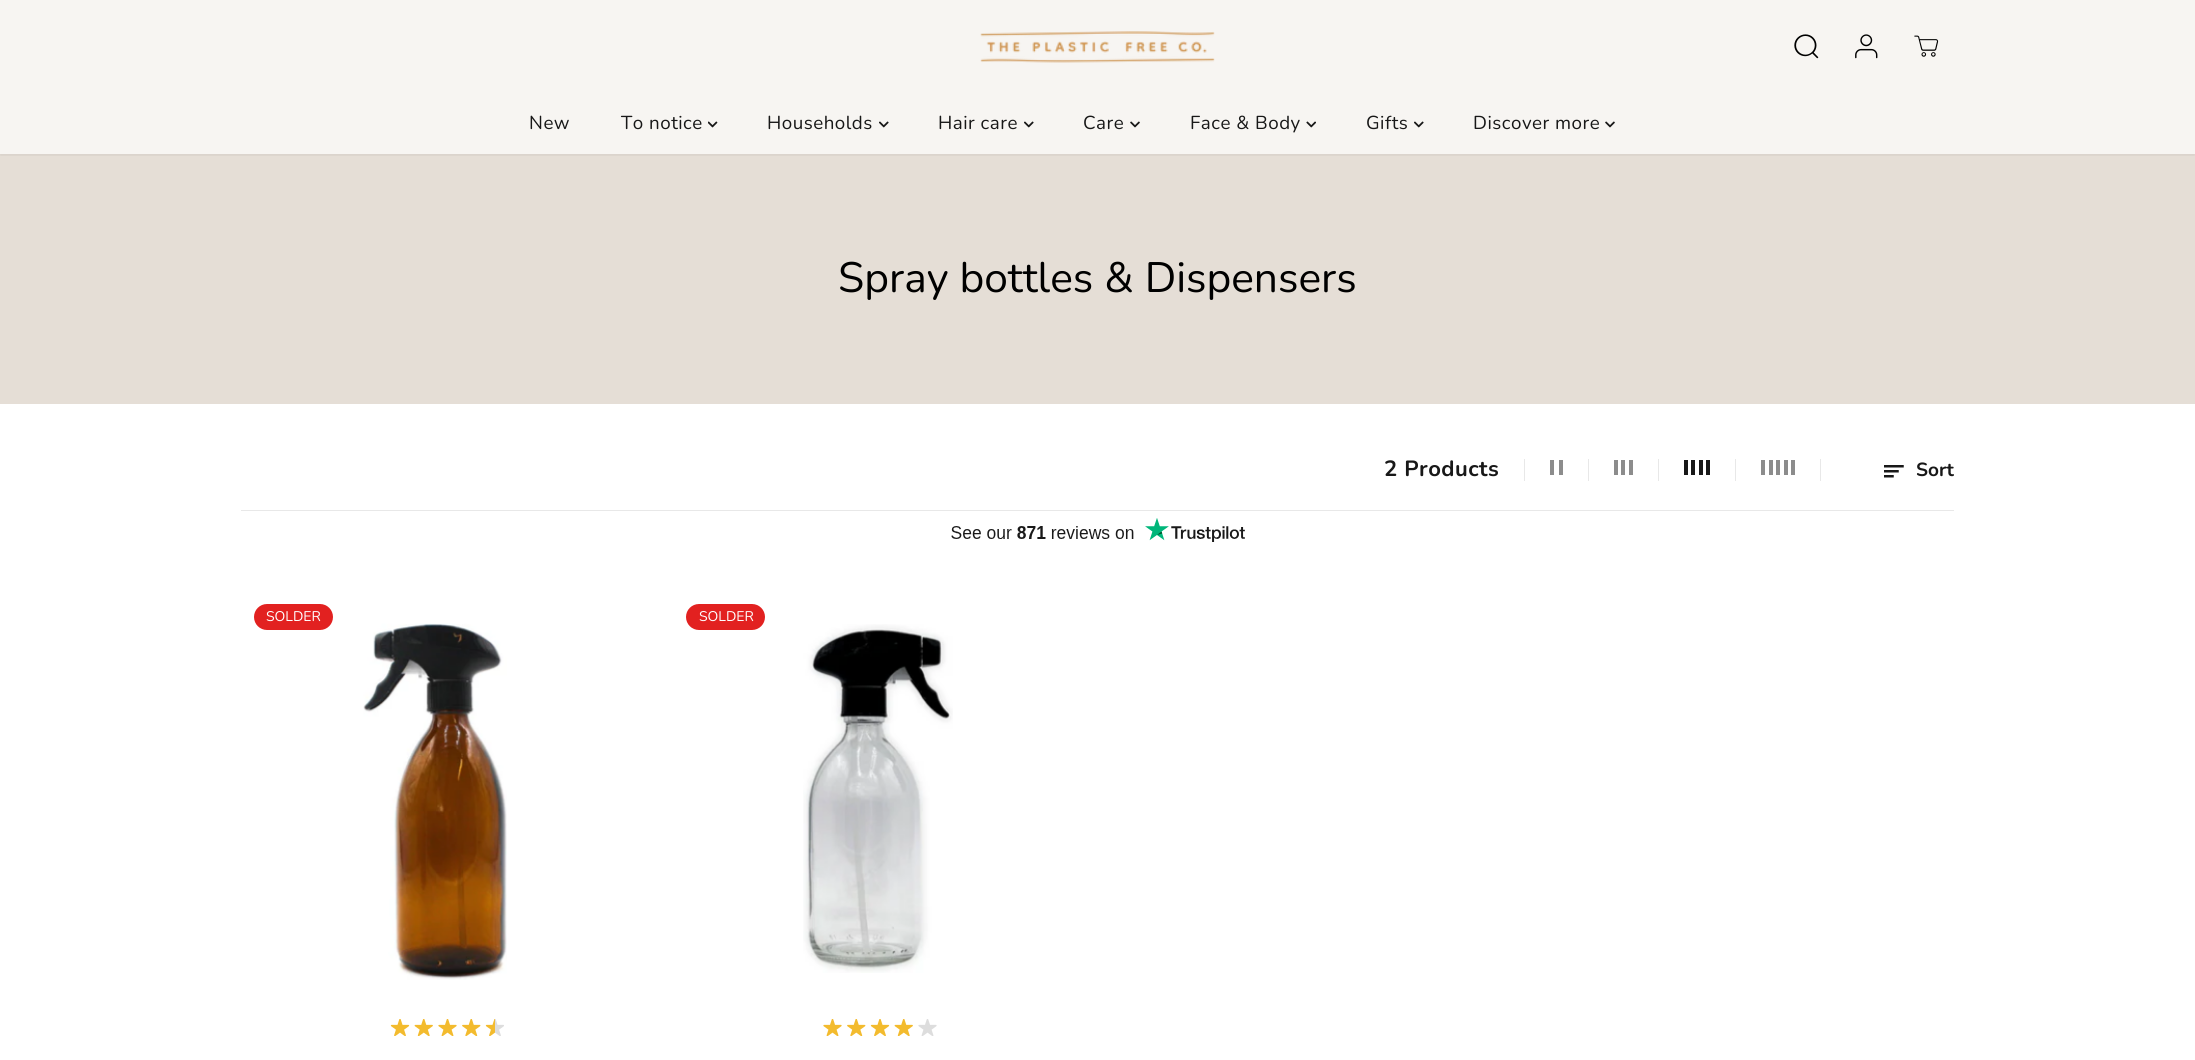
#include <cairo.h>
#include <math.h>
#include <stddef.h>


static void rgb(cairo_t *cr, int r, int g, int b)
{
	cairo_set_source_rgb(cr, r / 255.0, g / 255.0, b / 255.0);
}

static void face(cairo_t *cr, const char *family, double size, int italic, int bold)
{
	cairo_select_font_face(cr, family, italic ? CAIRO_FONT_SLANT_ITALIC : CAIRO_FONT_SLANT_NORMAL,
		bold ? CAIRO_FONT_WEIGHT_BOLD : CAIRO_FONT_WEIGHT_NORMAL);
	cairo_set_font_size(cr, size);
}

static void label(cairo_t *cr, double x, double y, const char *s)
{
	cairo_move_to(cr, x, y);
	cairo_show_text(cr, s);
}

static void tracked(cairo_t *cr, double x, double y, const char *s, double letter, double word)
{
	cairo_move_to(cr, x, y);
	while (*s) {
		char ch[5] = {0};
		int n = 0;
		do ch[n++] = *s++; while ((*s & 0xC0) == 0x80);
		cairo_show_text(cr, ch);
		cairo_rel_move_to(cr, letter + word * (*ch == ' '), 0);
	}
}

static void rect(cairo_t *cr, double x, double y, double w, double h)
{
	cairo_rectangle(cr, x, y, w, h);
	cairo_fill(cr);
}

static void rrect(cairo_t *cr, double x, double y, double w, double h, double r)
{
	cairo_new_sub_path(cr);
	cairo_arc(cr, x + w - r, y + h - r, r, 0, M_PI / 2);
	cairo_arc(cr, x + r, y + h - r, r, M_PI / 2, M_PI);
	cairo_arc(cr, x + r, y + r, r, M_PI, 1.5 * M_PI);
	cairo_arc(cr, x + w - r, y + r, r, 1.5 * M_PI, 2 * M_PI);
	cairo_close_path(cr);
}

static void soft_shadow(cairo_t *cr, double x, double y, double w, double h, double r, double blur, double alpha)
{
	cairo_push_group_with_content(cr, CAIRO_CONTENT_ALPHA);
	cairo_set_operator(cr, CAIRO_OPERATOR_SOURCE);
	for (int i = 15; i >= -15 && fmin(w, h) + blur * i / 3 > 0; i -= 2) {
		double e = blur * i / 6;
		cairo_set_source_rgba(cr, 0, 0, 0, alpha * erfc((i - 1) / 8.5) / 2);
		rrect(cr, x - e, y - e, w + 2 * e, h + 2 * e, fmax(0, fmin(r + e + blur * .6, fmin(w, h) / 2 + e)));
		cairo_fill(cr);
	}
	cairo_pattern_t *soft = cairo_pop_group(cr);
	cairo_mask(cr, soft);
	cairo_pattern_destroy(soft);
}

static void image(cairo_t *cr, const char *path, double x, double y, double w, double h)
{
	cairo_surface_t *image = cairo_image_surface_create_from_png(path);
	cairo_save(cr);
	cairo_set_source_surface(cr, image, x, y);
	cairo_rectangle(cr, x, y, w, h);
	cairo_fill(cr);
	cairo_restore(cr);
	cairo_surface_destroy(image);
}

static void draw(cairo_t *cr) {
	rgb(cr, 255, 255, 255);
	cairo_paint(cr);
	rgb(cr, 247, 245, 242);
	rect(cr, 0, 0, 2195, 91);
	rgb(cr, 229, 222, 214);
	rect(cr, 0, 154, 2195, 250);
	cairo_save(cr);
	cairo_rectangle(cr, 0, 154, 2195, 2);
	cairo_clip(cr);
	rgb(cr, 0, 0, 0);
	soft_shadow(cr, 0, 3, 2195, 153, 0, 1, 0.05);
	cairo_restore(cr);
	image(cr, "image0.png", 980, 31, 235, 32);
	image(cr, "image1.png", 1794, 34, 25, 25);
	image(cr, "image2.png", 1855, 34, 23, 25);
	image(cr, "image3.png", 1914, 35, 25, 22);
	rgb(cr, 247, 245, 242);
	rect(cr, 0, 91, 2195, 63);
	face(cr, "Nunito ExtraLight", 18.75, 0, 0);
	rgb(cr, 24, 24, 24);
	tracked(cr, 529, 129, "New", 0.5, 0);
	tracked(cr, 621, 129, "To notice", 0.5, 0);
	image(cr, "image4.png", 708, 121, 10, 7);
	tracked(cr, 767, 129, "Households", 0.5, 0);
	image(cr, "image5.png", 879, 121, 10, 7);
	tracked(cr, 938, 129, "Hair care", 0.5, 0);
	image(cr, "image5.png", 1024, 121, 10, 7);
	tracked(cr, 1083, 129, "Care", 0.5, 0);
	image(cr, "image6.png", 1130, 121, 10, 7);
	tracked(cr, 1190, 129, "Face & Body", 0.5, 0);
	image(cr, "image7.png", 1306, 121, 10, 7);
	tracked(cr, 1366, 129, "Gifts", 0.5, 0);
	image(cr, "image5.png", 1414, 121, 10, 7);
	tracked(cr, 1473, 129, "Discover more", 0.5, 0);
	image(cr, "image6.png", 1605, 121, 10, 7);
	face(cr, "Nunito ExtraLight", 42.5, 0, 0);
	rgb(cr, 0, 0, 0);
	label(cr, 838, 292, "Spray bottles & Dispensers");
	rgb(cr, 232, 232, 232);
	rect(cr, 241, 510, 1713, 1);
	face(cr, "Nunito", 22, 0, 1);
	rgb(cr, 24, 24, 24);
	tracked(cr, 1384, 476, "2 Products", 0.5, 0);
	rgb(cr, 232, 232, 232);
	rect(cr, 1588, 459, 1, 22);
	rect(cr, 1524, 459, 1, 22);
	rgb(cr, 140, 140, 140);
	rect(cr, 1550, 460, 4, 15);
	rect(cr, 1559, 460, 4, 15);
	rgb(cr, 232, 232, 232);
	rect(cr, 1658, 459, 1, 22);
	rgb(cr, 140, 140, 140);
	rect(cr, 1614, 460, 4, 15);
	rect(cr, 1621, 460, 4, 15);
	rect(cr, 1629, 460, 4, 15);
	rgb(cr, 232, 232, 232);
	rect(cr, 1735, 459, 1, 22);
	rgb(cr, 24, 24, 24);
	rect(cr, 1684, 460, 4, 15);
	rect(cr, 1691, 460, 4, 15);
	rect(cr, 1699, 460, 4, 15);
	rect(cr, 1706, 460, 4, 15);
	rgb(cr, 232, 232, 232);
	rect(cr, 1820, 459, 1, 22);
	rgb(cr, 140, 140, 140);
	rect(cr, 1761, 460, 4, 15);
	rect(cr, 1769, 460, 4, 15);
	rect(cr, 1776, 460, 4, 15);
	rect(cr, 1784, 460, 4, 15);
	rect(cr, 1791, 460, 4, 15);
	image(cr, "image8.png", 1884, 465, 20, 13);
	face(cr, "Nunito", 19, 0, 1);
	rgb(cr, 24, 24, 24);
	label(cr, 1916, 476, "Sort");
	image(cr, "image9.png", 951, 518, 294, 24);
	rgb(cr, 226, 33, 32);
	rrect(cr, 254, 604, 79, 26, 13);
	cairo_fill(cr);
	face(cr, "Nunito ExtraLight", 14, 0, 0);
	rgb(cr, 255, 255, 255);
	label(cr, 266, 621, "SOLDER");
	image(cr, "image10.png", 363, 623, 144, 357);
	image(cr, "image11.png", 390, 1019, 20, 17);
	image(cr, "image12.png", 414, 1019, 19, 17);
	image(cr, "image13.png", 438, 1019, 19, 17);
	image(cr, "image14.png", 462, 1019, 19, 17);
	image(cr, "image15.png", 485, 1019, 19, 17);
	rgb(cr, 226, 33, 32);
	rrect(cr, 686, 604, 79, 26, 13);
	cairo_fill(cr);
	rgb(cr, 255, 255, 255);
	label(cr, 699, 621, "SOLDER");
	image(cr, "image16.png", 803, 624, 150, 349);
	image(cr, "image13.png", 823, 1019, 19, 17);
	image(cr, "image14.png", 847, 1019, 19, 17);
	image(cr, "image11.png", 870, 1019, 20, 17);
	image(cr, "image12.png", 894, 1019, 19, 17);
	image(cr, "image17.png", 918, 1019, 19, 17);
}

int main(void) {
	cairo_surface_t *surface = cairo_image_surface_create(CAIRO_FORMAT_RGB24, 2195, 1060);
	cairo_t *cr = cairo_create(surface);
	cairo_font_options_t *options = cairo_font_options_create();
	cairo_font_options_set_hint_metrics(options, CAIRO_HINT_METRICS_OFF);
	cairo_font_options_set_hint_style(options, CAIRO_HINT_STYLE_NONE);
	cairo_set_font_options(cr, options);
	cairo_set_miter_limit(cr, 4);
	draw(cr);
	cairo_surface_write_to_png(surface, "render.png");
	cairo_font_options_destroy(options);
	cairo_destroy(cr);
	cairo_surface_destroy(surface);
	return 0;
}
